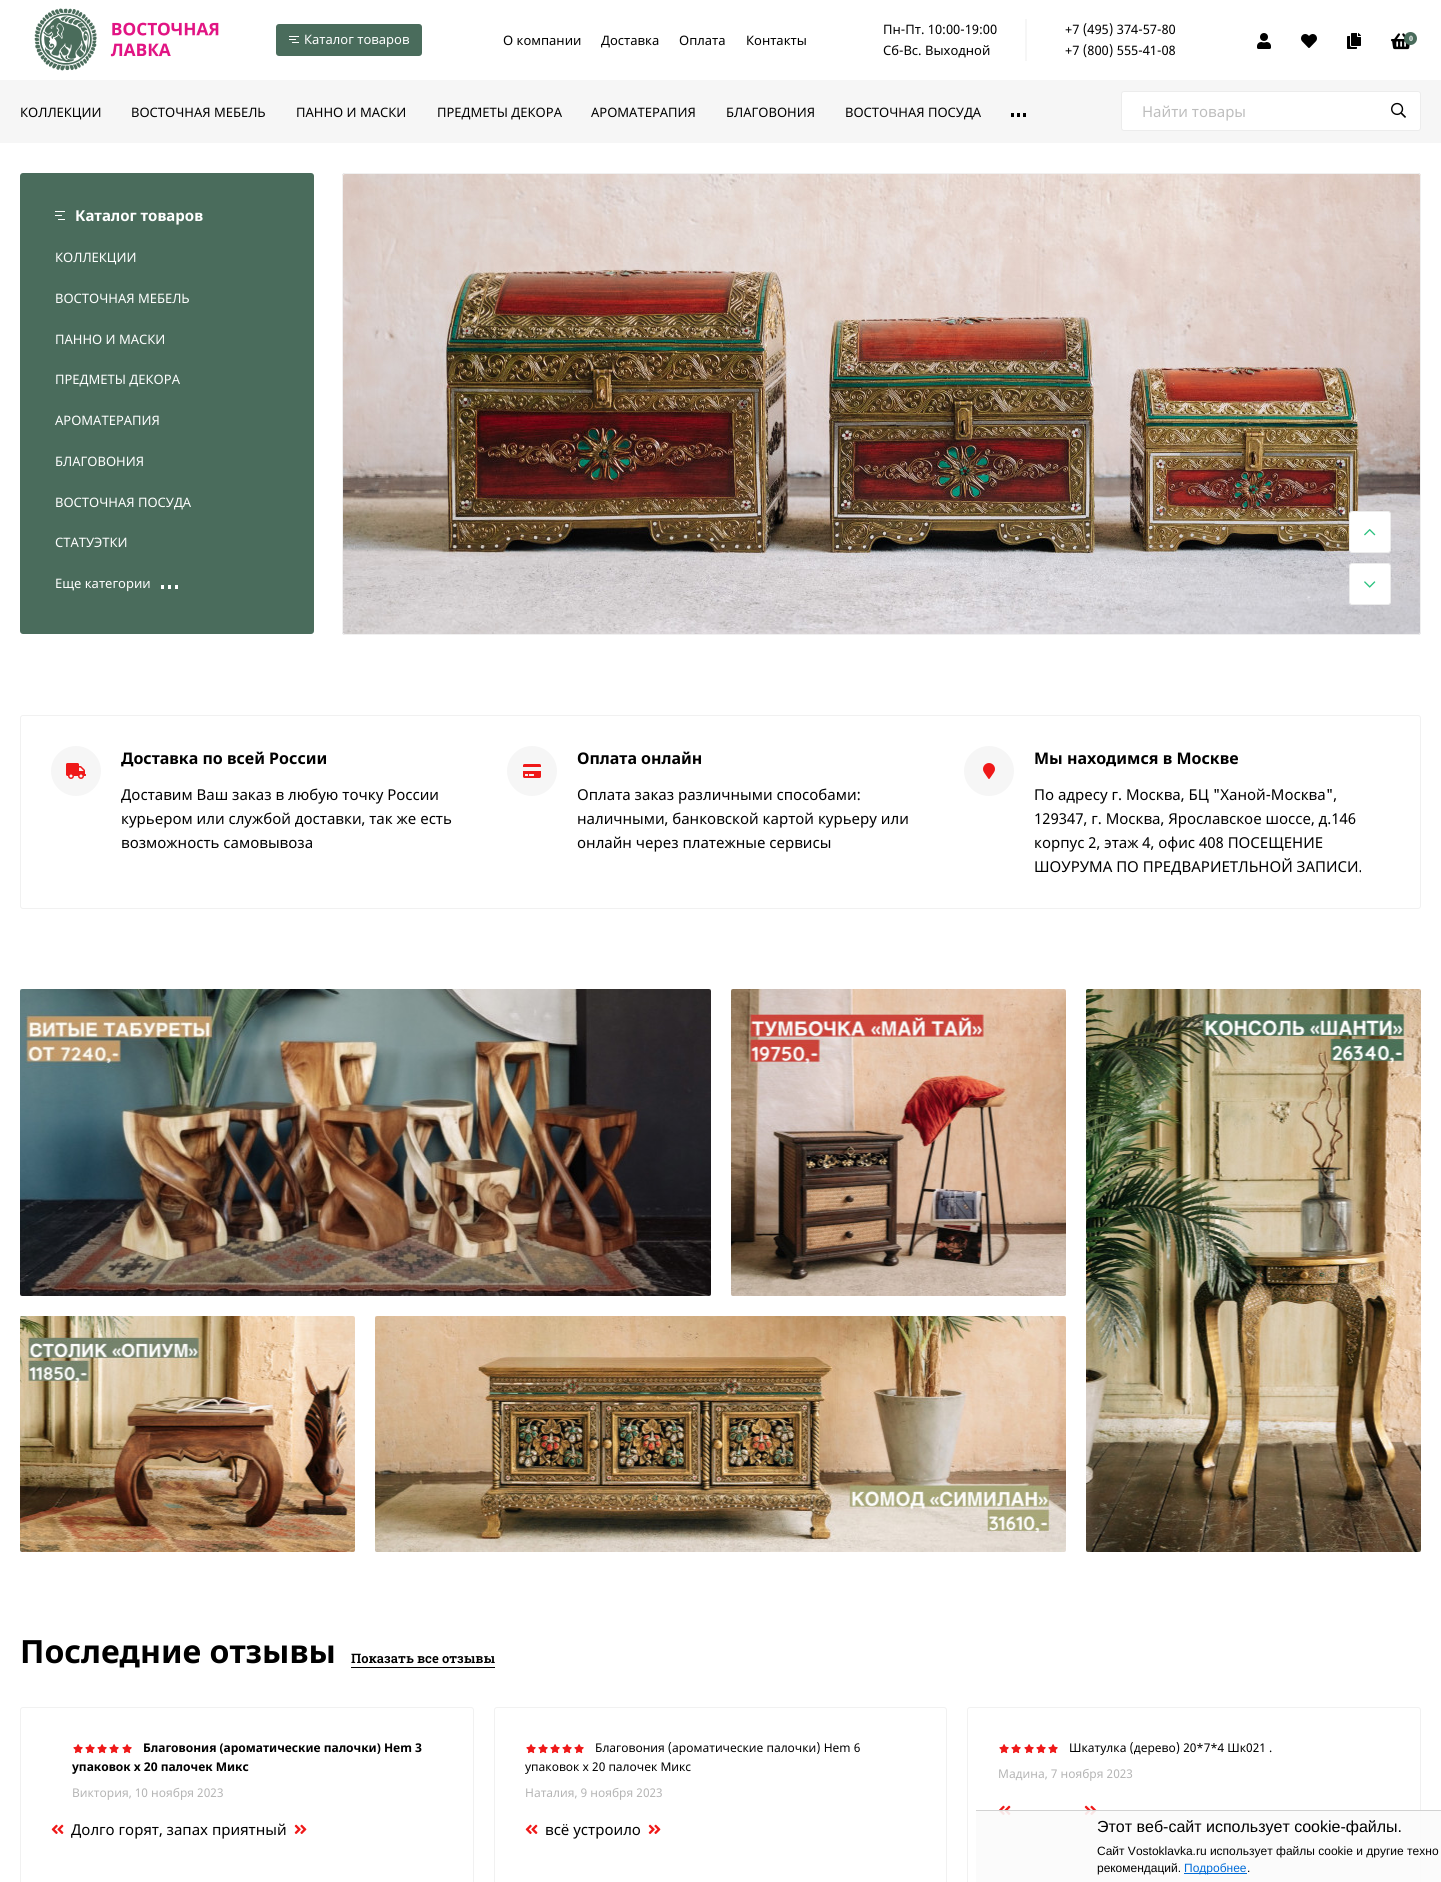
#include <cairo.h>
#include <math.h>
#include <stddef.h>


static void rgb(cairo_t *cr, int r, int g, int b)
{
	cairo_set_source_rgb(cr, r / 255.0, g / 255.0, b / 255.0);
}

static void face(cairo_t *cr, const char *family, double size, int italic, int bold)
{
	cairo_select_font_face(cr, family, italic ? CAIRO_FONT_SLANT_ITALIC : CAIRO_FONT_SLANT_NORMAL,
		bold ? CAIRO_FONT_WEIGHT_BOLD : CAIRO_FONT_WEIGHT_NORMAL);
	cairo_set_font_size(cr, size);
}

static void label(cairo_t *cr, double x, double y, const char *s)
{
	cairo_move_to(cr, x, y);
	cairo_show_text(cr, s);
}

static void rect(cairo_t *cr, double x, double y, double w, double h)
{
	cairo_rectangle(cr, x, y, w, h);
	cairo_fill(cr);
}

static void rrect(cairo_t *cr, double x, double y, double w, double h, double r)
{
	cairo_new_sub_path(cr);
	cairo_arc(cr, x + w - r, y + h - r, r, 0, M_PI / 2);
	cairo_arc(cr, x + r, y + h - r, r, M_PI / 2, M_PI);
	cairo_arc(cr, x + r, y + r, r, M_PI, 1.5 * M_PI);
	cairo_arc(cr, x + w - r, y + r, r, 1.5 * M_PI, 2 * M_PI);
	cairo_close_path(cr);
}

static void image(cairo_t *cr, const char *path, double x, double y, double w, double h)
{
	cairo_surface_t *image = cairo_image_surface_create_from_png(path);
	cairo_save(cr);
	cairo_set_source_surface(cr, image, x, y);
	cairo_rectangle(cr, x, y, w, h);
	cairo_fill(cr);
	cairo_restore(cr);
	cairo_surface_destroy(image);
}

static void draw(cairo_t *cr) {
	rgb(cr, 255, 255, 255);
	cairo_paint(cr);
	image(cr, "image0.png", 34, 8, 185, 63);
	rgb(cr, 74, 108, 92);
	rrect(cr, 276, 24, 146, 32, 3);
	cairo_fill(cr);
	rgb(cr, 255, 255, 255);
	rect(cr, 289, 36, 10, 1);
	rect(cr, 289, 39, 7, 1);
	rect(cr, 292, 42, 7, 1);
	face(cr, "Noto Sans", 13, 0, 0);
	label(cr, 304, 44, "Каталог товаров");
	rgb(cr, 0, 0, 0);
	label(cr, 503, 45, "О компании");
	label(cr, 601, 45, "Доставка");
	label(cr, 679, 45, "Оплата");
	label(cr, 746, 45, "Контакты");
	rgb(cr, 246, 246, 246);
	rect(cr, 1025, 19, 2, 42);
	rgb(cr, 0, 0, 0);
	label(cr, 883, 34, "Пн-Пт. 10:00-19:00");
	label(cr, 883, 55, "Сб-Вс. Выходной");
	label(cr, 1065, 34, "+7 (495) 374-57-80");
	label(cr, 1065, 55, "+7 (800) 555-41-08");
	image(cr, "image1.png", 1257, 33, 14, 16);
	image(cr, "image2.png", 1301, 34, 16, 14);
	image(cr, "image3.png", 1347, 33, 14, 16);
	image(cr, "image4.png", 1391, 33, 19, 17);
	rgb(cr, 74, 108, 92);
	cairo_arc(cr, 1410.5, 38.5, 6.5, 0, 2 * M_PI);
	cairo_fill(cr);
	face(cr, "Liberation Serif", 8, 0, 1);
	rgb(cr, 255, 255, 255);
	label(cr, 1409, 41, "0");
	rgb(cr, 246, 246, 246);
	rect(cr, 0, 80, 1441, 63);
	face(cr, "Noto Sans", 13, 0, 0);
	rgb(cr, 0, 0, 0);
	label(cr, 20, 117, "КОЛЛЕКЦИИ");
	label(cr, 131, 117, "ВОСТОЧНАЯ МЕБЕЛЬ");
	label(cr, 296, 117, "ПАННО И МАСКИ");
	label(cr, 437, 117, "ПРЕДМЕТЫ ДЕКОРА");
	label(cr, 591, 117, "АРОМАТЕРАПИЯ");
	label(cr, 726, 117, "БЛАГОВОНИЯ");
	label(cr, 845, 117, "ВОСТОЧНАЯ ПОСУДА");
	rect(cr, 1011, 113, 3, 4);
	rect(cr, 1017, 113, 3, 4);
	rect(cr, 1023, 113, 3, 4);
	rgb(cr, 255, 255, 255);
	rrect(cr, 1121.5, 91.5, 299, 39, 2.5);
	cairo_fill_preserve(cr);
	rgb(cr, 236, 236, 236);
	cairo_set_line_width(cr, 1);
	cairo_stroke(cr);
	face(cr, "Noto Sans", 15, 0, 0);
	rgb(cr, 189, 189, 189);
	label(cr, 1142, 117, "Найти товары");
	image(cr, "image5.png", 1391, 102, 15, 16);
	rgb(cr, 74, 108, 92);
	rrect(cr, 20, 173, 294, 461, 3);
	cairo_fill(cr);
	rgb(cr, 255, 255, 255);
	rect(cr, 55, 211, 10, 1);
	rect(cr, 55, 215, 7, 1);
	rect(cr, 58, 219, 7, 1);
	face(cr, "Noto Sans", 15, 0, 1);
	label(cr, 75, 221, "Каталог товаров");
	face(cr, "Noto Sans", 13, 0, 0);
	label(cr, 55, 262, "КОЛЛЕКЦИИ");
	label(cr, 55, 303, "ВОСТОЧНАЯ МЕБЕЛЬ");
	label(cr, 55, 344, "ПАННО И МАСКИ");
	label(cr, 55, 384, "ПРЕДМЕТЫ ДЕКОРА");
	label(cr, 55, 425, "АРОМАТЕРАПИЯ");
	label(cr, 55, 466, "БЛАГОВОНИЯ");
	label(cr, 55, 507, "ВОСТОЧНАЯ ПОСУДА");
	label(cr, 55, 547, "СТАТУЭТКИ");
	label(cr, 55, 588, "Еще категории");
	rect(cr, 161, 585, 3, 4);
	rect(cr, 168, 585, 3, 4);
	rect(cr, 175, 585, 3, 4);
	image(cr, "image6.png", 342, 173, 1079, 462);
	rrect(cr, 342.5, 173.5, 1078, 461, 2.5);
	rgb(cr, 241, 241, 241);
	cairo_stroke(cr);
	rgb(cr, 255, 255, 255);
	rrect(cr, 1349.5, 511.5, 41, 41, 2.5);
	cairo_fill_preserve(cr);
	rgb(cr, 236, 236, 236);
	cairo_stroke(cr);
	image(cr, "image7.png", 1364, 529, 12, 7);
	rgb(cr, 255, 255, 255);
	rrect(cr, 1349.5, 563.5, 41, 41, 2.5);
	cairo_fill_preserve(cr);
	rgb(cr, 236, 236, 236);
	cairo_stroke(cr);
	image(cr, "image8.png", 1364, 581, 12, 7);
	rrect(cr, 20.5, 715.5, 1400, 193, 2.5);
	rgb(cr, 241, 241, 241);
	cairo_stroke(cr);
	rgb(cr, 246, 246, 246);
	cairo_arc(cr, 76, 771, 25, 0, 2 * M_PI);
	cairo_fill(cr);
	image(cr, "image9.png", 66, 763, 20, 16);
	face(cr, "Noto Sans", 16, 0, 1);
	rgb(cr, 0, 0, 0);
	label(cr, 121, 764, "Доставка по всей России");
	face(cr, "Noto Sans", 15, 0, 0);
	label(cr, 121, 800, "Доставим Ваш заказ в любую точку России");
	label(cr, 121, 824, "курьером или службой доставки, так же есть");
	label(cr, 121, 848, "возможность самовывоза");
	rgb(cr, 246, 246, 246);
	cairo_new_path(cr);
	cairo_arc(cr, 532, 771, 25, 0, 2 * M_PI);
	cairo_fill(cr);
	image(cr, "image10.png", 523, 764, 18, 14);
	face(cr, "Noto Sans", 16, 0, 1);
	rgb(cr, 0, 0, 0);
	label(cr, 577, 764, "Оплата онлайн");
	face(cr, "Noto Sans", 15, 0, 0);
	label(cr, 577, 800, "Оплата заказ различными способами:");
	label(cr, 577, 824, "наличными, банковской картой курьеру или");
	label(cr, 577, 848, "онлайн через платежные сервисы");
	rgb(cr, 246, 246, 246);
	cairo_new_path(cr);
	cairo_arc(cr, 989, 771, 25, 0, 2 * M_PI);
	cairo_fill(cr);
	image(cr, "image11.png", 983, 763, 12, 16);
	face(cr, "Noto Sans", 16, 0, 1);
	rgb(cr, 0, 0, 0);
	label(cr, 1034, 764, "Мы находимся в Москве");
	face(cr, "Noto Sans", 15, 0, 0);
	label(cr, 1034, 800, "По адресу г. Москва, БЦ \"Ханой-Москва\",");
	label(cr, 1034, 824, "129347, г. Москва, Ярославское шоссе, д.146");
	label(cr, 1034, 848, "корпус 2, этаж 4, офис 408 ПОСЕЩЕНИЕ");
	label(cr, 1034, 872, "ШОУРУМА ПО ПРЕДВАРИЕТЛЬНОЙ ЗАПИСИ.");
	image(cr, "image12.png", 20, 989, 691, 307);
	image(cr, "image13.png", 731, 989, 335, 307);
	image(cr, "image14.png", 1086, 989, 335, 563);
	image(cr, "image15.png", 20, 1316, 335, 236);
	image(cr, "image16.png", 375, 1316, 691, 236);
	face(cr, "Noto Sans", 32, 0, 1);
	label(cr, 20, 1663, "Последние отзывы");
	face(cr, "Roboto Slab SemiBold", 13, 0, 0);
	label(cr, 351, 1663, "Показать все отзывы");
	rect(cr, 351, 1667, 144, 1);
	rrect(cr, 20.5, 1707.5, 453, 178, 2.5);
	rgb(cr, 241, 241, 241);
	cairo_stroke(cr);
	image(cr, "image17.png", 73, 1744, 10, 10);
	image(cr, "image17.png", 85, 1744, 10, 10);
	image(cr, "image17.png", 97, 1744, 10, 10);
	image(cr, "image17.png", 109, 1744, 10, 10);
	image(cr, "image17.png", 122, 1744, 10, 10);
	face(cr, "Noto Sans", 12, 0, 1);
	rgb(cr, 0, 0, 0);
	label(cr, 143, 1752, "Благовония (ароматические палочки) Hem 3");
	label(cr, 72, 1771, "упаковок х 20 палочек Микс");
	face(cr, "Noto Sans", 12, 0, 0);
	rgb(cr, 181, 181, 181);
	label(cr, 72, 1797, "Виктория, 10 ноября 2023");
	image(cr, "image18.png", 51, 1824, 13, 10);
	face(cr, "Noto Sans", 15, 0, 0);
	rgb(cr, 0, 0, 0);
	label(cr, 71, 1835, "Долго горят, запах приятный");
	image(cr, "image19.png", 294, 1824, 13, 10);
	rrect(cr, 494.5, 1707.5, 452, 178, 2.5);
	rgb(cr, 241, 241, 241);
	cairo_stroke(cr);
	image(cr, "image17.png", 526, 1744, 10, 10);
	image(cr, "image17.png", 538, 1744, 10, 10);
	image(cr, "image17.png", 550, 1744, 10, 10);
	image(cr, "image17.png", 562, 1744, 10, 10);
	image(cr, "image17.png", 574, 1744, 10, 10);
	face(cr, "Noto Sans", 12, 0, 0);
	rgb(cr, 0, 0, 0);
	label(cr, 595, 1752, "Благовония (ароматические палочки) Hem 6");
	label(cr, 525, 1771, "упаковок х 20 палочек Микс");
	rgb(cr, 181, 181, 181);
	label(cr, 525, 1797, "Наталия, 9 ноября 2023");
	image(cr, "image18.png", 525, 1824, 13, 10);
	face(cr, "Noto Sans", 15, 0, 0);
	rgb(cr, 0, 0, 0);
	label(cr, 545, 1835, "всё устроило");
	image(cr, "image19.png", 648, 1824, 13, 10);
	rrect(cr, 967.5, 1707.5, 453, 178, 2.5);
	rgb(cr, 241, 241, 241);
	cairo_stroke(cr);
	image(cr, "image17.png", 999, 1744, 10, 10);
	image(cr, "image17.png", 1011, 1744, 10, 10);
	image(cr, "image17.png", 1024, 1744, 10, 10);
	image(cr, "image17.png", 1036, 1744, 10, 10);
	image(cr, "image17.png", 1048, 1744, 10, 10);
	face(cr, "Noto Sans", 12, 0, 0);
	rgb(cr, 0, 0, 0);
	label(cr, 1069, 1752, "Шкатулка (дерево) 20*7*4 Шк021 .");
	rgb(cr, 181, 181, 181);
	label(cr, 998, 1778, "Мадина, 7 ноября 2023");
	image(cr, "image20.png", 999, 1805, 12, 10);
	image(cr, "image19.png", 1084, 1805, 13, 10);
	cairo_set_source_rgba(cr, 0.984, 0.984, 0.984, 0.9);
	rect(cr, 976, 1811, 465, 71);
	rgb(cr, 210, 210, 210);
	rect(cr, 976, 1810, 465, 1);
	face(cr, "Liberation Sans", 16, 0, 0);
	rgb(cr, 0, 0, 0);
	label(cr, 1097, 1832, "Этот веб-сайт использует cookie-файлы.");
	face(cr, "Liberation Sans", 12, 0, 0);
	label(cr, 1097, 1855, "Cайт Vostoklavka.ru использует файлы cookie и другие техно");
	label(cr, 1097, 1872, "рекомендаций.");
	rgb(cr, 0, 107, 216);
	rect(cr, 1184, 1873, 63, 1);
	label(cr, 1184, 1872, "Подробнее");
	rgb(cr, 0, 0, 0);
	label(cr, 1247, 1872, ".");
}

int main(void) {
	cairo_surface_t *surface = cairo_image_surface_create(CAIRO_FORMAT_RGB24, 1441, 1882);
	cairo_t *cr = cairo_create(surface);
	cairo_font_options_t *options = cairo_font_options_create();
	cairo_font_options_set_hint_metrics(options, CAIRO_HINT_METRICS_OFF);
	cairo_font_options_set_hint_style(options, CAIRO_HINT_STYLE_NONE);
	cairo_set_font_options(cr, options);
	cairo_set_miter_limit(cr, 4);
	draw(cr);
	cairo_surface_write_to_png(surface, "render.png");
	cairo_font_options_destroy(options);
	cairo_destroy(cr);
	cairo_surface_destroy(surface);
	return 0;
}
